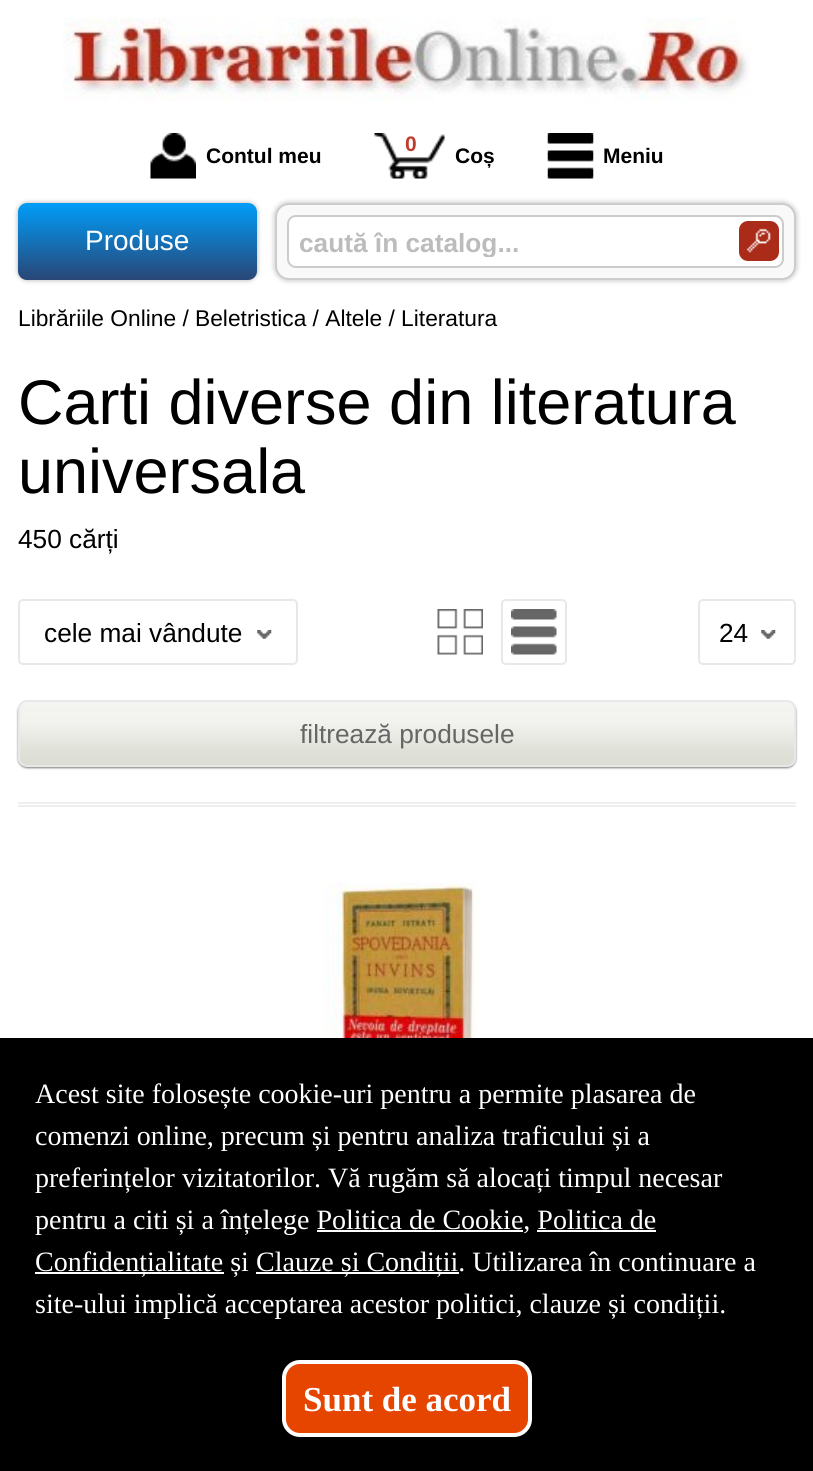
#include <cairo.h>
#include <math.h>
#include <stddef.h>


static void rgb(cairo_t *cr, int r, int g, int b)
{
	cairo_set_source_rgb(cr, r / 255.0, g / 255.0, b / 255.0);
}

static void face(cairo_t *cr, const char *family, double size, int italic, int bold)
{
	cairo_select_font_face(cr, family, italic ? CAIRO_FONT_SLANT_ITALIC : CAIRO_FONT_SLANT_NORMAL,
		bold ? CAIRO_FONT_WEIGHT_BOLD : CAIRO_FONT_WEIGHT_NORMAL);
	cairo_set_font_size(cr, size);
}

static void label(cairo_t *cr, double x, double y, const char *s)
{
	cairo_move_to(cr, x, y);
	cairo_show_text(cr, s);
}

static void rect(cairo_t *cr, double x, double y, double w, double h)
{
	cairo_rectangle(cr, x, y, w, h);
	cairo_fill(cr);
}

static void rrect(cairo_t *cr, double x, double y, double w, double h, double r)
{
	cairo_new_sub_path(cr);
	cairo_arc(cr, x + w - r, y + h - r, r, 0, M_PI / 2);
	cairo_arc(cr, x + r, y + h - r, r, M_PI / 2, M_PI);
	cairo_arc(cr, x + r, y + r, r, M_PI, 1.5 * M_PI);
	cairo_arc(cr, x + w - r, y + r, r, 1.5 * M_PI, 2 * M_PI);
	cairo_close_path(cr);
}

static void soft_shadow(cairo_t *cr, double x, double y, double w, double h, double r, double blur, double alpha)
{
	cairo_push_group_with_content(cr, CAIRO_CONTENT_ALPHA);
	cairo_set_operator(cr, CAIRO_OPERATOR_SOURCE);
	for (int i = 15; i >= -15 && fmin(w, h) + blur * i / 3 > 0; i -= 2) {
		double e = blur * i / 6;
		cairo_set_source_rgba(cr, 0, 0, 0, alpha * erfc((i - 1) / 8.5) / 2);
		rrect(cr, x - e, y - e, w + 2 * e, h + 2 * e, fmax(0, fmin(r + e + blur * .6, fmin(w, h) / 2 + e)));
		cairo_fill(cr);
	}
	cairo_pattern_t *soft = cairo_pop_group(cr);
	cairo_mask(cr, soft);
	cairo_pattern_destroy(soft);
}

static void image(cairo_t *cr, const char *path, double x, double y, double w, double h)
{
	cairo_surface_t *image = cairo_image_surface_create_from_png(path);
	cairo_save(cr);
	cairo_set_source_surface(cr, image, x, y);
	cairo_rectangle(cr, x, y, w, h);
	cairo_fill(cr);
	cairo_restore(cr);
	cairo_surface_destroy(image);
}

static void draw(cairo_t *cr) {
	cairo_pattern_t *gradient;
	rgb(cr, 255, 255, 255);
	cairo_paint(cr);
	image(cr, "image0.png", 63, 17, 687, 85);
	image(cr, "image1.png", 150, 133, 46, 46);
	face(cr, "Liberation Sans", 21, 0, 1);
	rgb(cr, 0, 0, 0);
	label(cr, 206, 163, "Contul meu");
	image(cr, "image2.png", 374, 133, 71, 46);
	rgb(cr, 191, 60, 43);
	label(cr, 405, 151, "0");
	rgb(cr, 0, 0, 0);
	label(cr, 455, 163, "Coș");
	image(cr, "image3.png", 547, 133, 47, 46);
	label(cr, 603, 163, "Meniu");
	rgb(cr, 50, 50, 50);
	soft_shadow(cr, 18, 203, 239, 77, 9, 2.5, 0.4);
	gradient = cairo_pattern_create_linear(137, 203, 137, 280);
	cairo_pattern_add_color_stop_rgba(gradient, 0, 0, 0.616, 0.973, 1);
	cairo_pattern_add_color_stop_rgba(gradient, 1, 0.161, 0.275, 0.463, 1);
	cairo_set_source(cr, gradient);
	cairo_pattern_destroy(gradient);
	rrect(cr, 18, 203, 239, 77, 9);
	cairo_fill(cr);
	face(cr, "Liberation Sans", 28, 0, 0);
	rgb(cr, 255, 255, 255);
	label(cr, 85, 250, "Produse");
	rgb(cr, 0, 0, 0);
	soft_shadow(cr, 273, 201, 525, 81, 16, 2, 0.15);
	rgb(cr, 249, 249, 249);
	rrect(cr, 276, 204, 519, 75, 13);
	cairo_fill_preserve(cr);
	rgb(cr, 204, 204, 204);
	cairo_stroke(cr);
	rgb(cr, 255, 255, 255);
	rrect(cr, 288, 216, 495, 51, 8);
	cairo_fill_preserve(cr);
	rgb(cr, 204, 204, 204);
	cairo_stroke(cr);
	cairo_save(cr);
	cairo_rectangle(cr, 299, 228, 403, 29);
	cairo_clip(cr);
	face(cr, "Liberation Sans", 26.25, 0, 1);
	rgb(cr, 188, 188, 188);
	label(cr, 299, 252, "caută în catalog...");
	cairo_restore(cr);
	rgb(cr, 170, 43, 24);
	rrect(cr, 739, 221, 40, 40, 9);
	cairo_fill(cr);
	image(cr, "image4.png", 746, 228, 25, 25);
	face(cr, "Liberation Sans", 22.75, 0, 0);
	rgb(cr, 0, 0, 0);
	label(cr, 18, 326, "Librăriile Online / Beletristica / Altele / Literatura");
	face(cr, "Liberation Sans", 63, 0, 0);
	label(cr, 18, 424, "Carti diverse din literatura");
	label(cr, 18, 493, "universala");
	face(cr, "Liberation Sans", 26.25, 0, 0);
	label(cr, 18, 548, "450 cărți");
	rrect(cr, 19, 600, 278, 64, 4);
	rgb(cr, 232, 232, 232);
	cairo_stroke(cr);
	rgb(cr, 0, 0, 0);
	label(cr, 44, 642, "cele mai vândute");
	image(cr, "image5.png", 257, 630, 15, 9);
	image(cr, "image6.png", 437, 609, 46, 46);
	rrect(cr, 502, 600, 64, 64, 4);
	rgb(cr, 232, 232, 232);
	cairo_stroke(cr);
	image(cr, "image7.png", 511, 609, 46, 46);
	rrect(cr, 699, 600, 96, 64, 4);
	cairo_stroke(cr);
	rgb(cr, 0, 0, 0);
	label(cr, 719, 642, "24");
	image(cr, "image5.png", 761, 630, 15, 9);
	rgb(cr, 0, 0, 0);
	soft_shadow(cr, 18, 702, 778, 66, 9, 1, 0.5);
	cairo_save(cr);
	rrect(cr, 18, 700, 778, 67, 9);
	cairo_clip(cr);
	gradient = cairo_pattern_create_linear(407, 702, 407, 765);
	cairo_pattern_add_color_stop_rgba(gradient, 0, 0.957, 0.957, 0.949, 1);
	cairo_pattern_add_color_stop_rgba(gradient, 0.32, 0.949, 0.953, 0.933, 1);
	cairo_pattern_add_color_stop_rgba(gradient, 0.79, 0.875, 0.878, 0.847, 1);
	cairo_pattern_add_color_stop_rgba(gradient, 1, 0.863, 0.867, 0.835, 1);
	cairo_set_source(cr, gradient);
	cairo_pattern_destroy(gradient);
	rect(cr, 18, 702, 778, 63);
	cairo_restore(cr);
	rrect(cr, 19, 701, 776, 65, 8);
	rgb(cr, 232, 232, 232);
	cairo_stroke(cr);
	rgb(cr, 102, 102, 102);
	label(cr, 300, 743, "filtrează produsele");
	rgb(cr, 238, 238, 238);
	rect(cr, 18, 802, 778, 2);
	rect(cr, 18, 805, 778, 2);
	image(cr, "image8.png", 323, 882, 154, 156);
	rgb(cr, 0, 0, 0);
	rect(cr, 0, 1038, 813, 433);
	face(cr, "Liberation Serif", 28, 0, 0);
	rgb(cr, 255, 255, 255);
	label(cr, 35, 1103, "Acest site folosește cookie-uri pentru a permite plasarea de");
	label(cr, 35, 1145, "comenzi online, precum și pentru analiza traficului și a");
	label(cr, 35, 1187, "preferințelor vizitatorilor. Vă rugăm să alocați timpul necesar");
	label(cr, 35, 1229, "pentru a citi și a înțelege Politica de Cookie, Politica de");
	rect(cr, 317, 1230, 206, 2);
	rect(cr, 35, 1272, 189, 2);
	label(cr, 35, 1271, "Confidențialitate și");
	rect(cr, 537, 1230, 119, 2);
	rect(cr, 256, 1272, 203, 2);
	label(cr, 256, 1271, "Clauze și Condiții. Utilizarea în continuare a");
	label(cr, 35, 1313, "site-ului implică acceptarea acestor politici, clauze și condiții.");
	rgb(cr, 230, 69, 0);
	rrect(cr, 284, 1362, 246, 73, 16);
	cairo_fill_preserve(cr);
	rgb(cr, 255, 255, 255);
	cairo_set_line_width(cr, 4);
	cairo_stroke(cr);
	face(cr, "Liberation Serif", 35, 0, 1);
	label(cr, 303, 1411, "Sunt de acord");
}

int main(void) {
	cairo_surface_t *surface = cairo_image_surface_create(CAIRO_FORMAT_RGB24, 813, 1471);
	cairo_t *cr = cairo_create(surface);
	cairo_font_options_t *options = cairo_font_options_create();
	cairo_font_options_set_hint_metrics(options, CAIRO_HINT_METRICS_OFF);
	cairo_font_options_set_hint_style(options, CAIRO_HINT_STYLE_NONE);
	cairo_set_font_options(cr, options);
	cairo_set_miter_limit(cr, 4);
	draw(cr);
	cairo_surface_write_to_png(surface, "render.png");
	cairo_font_options_destroy(options);
	cairo_destroy(cr);
	cairo_surface_destroy(surface);
	return 0;
}
